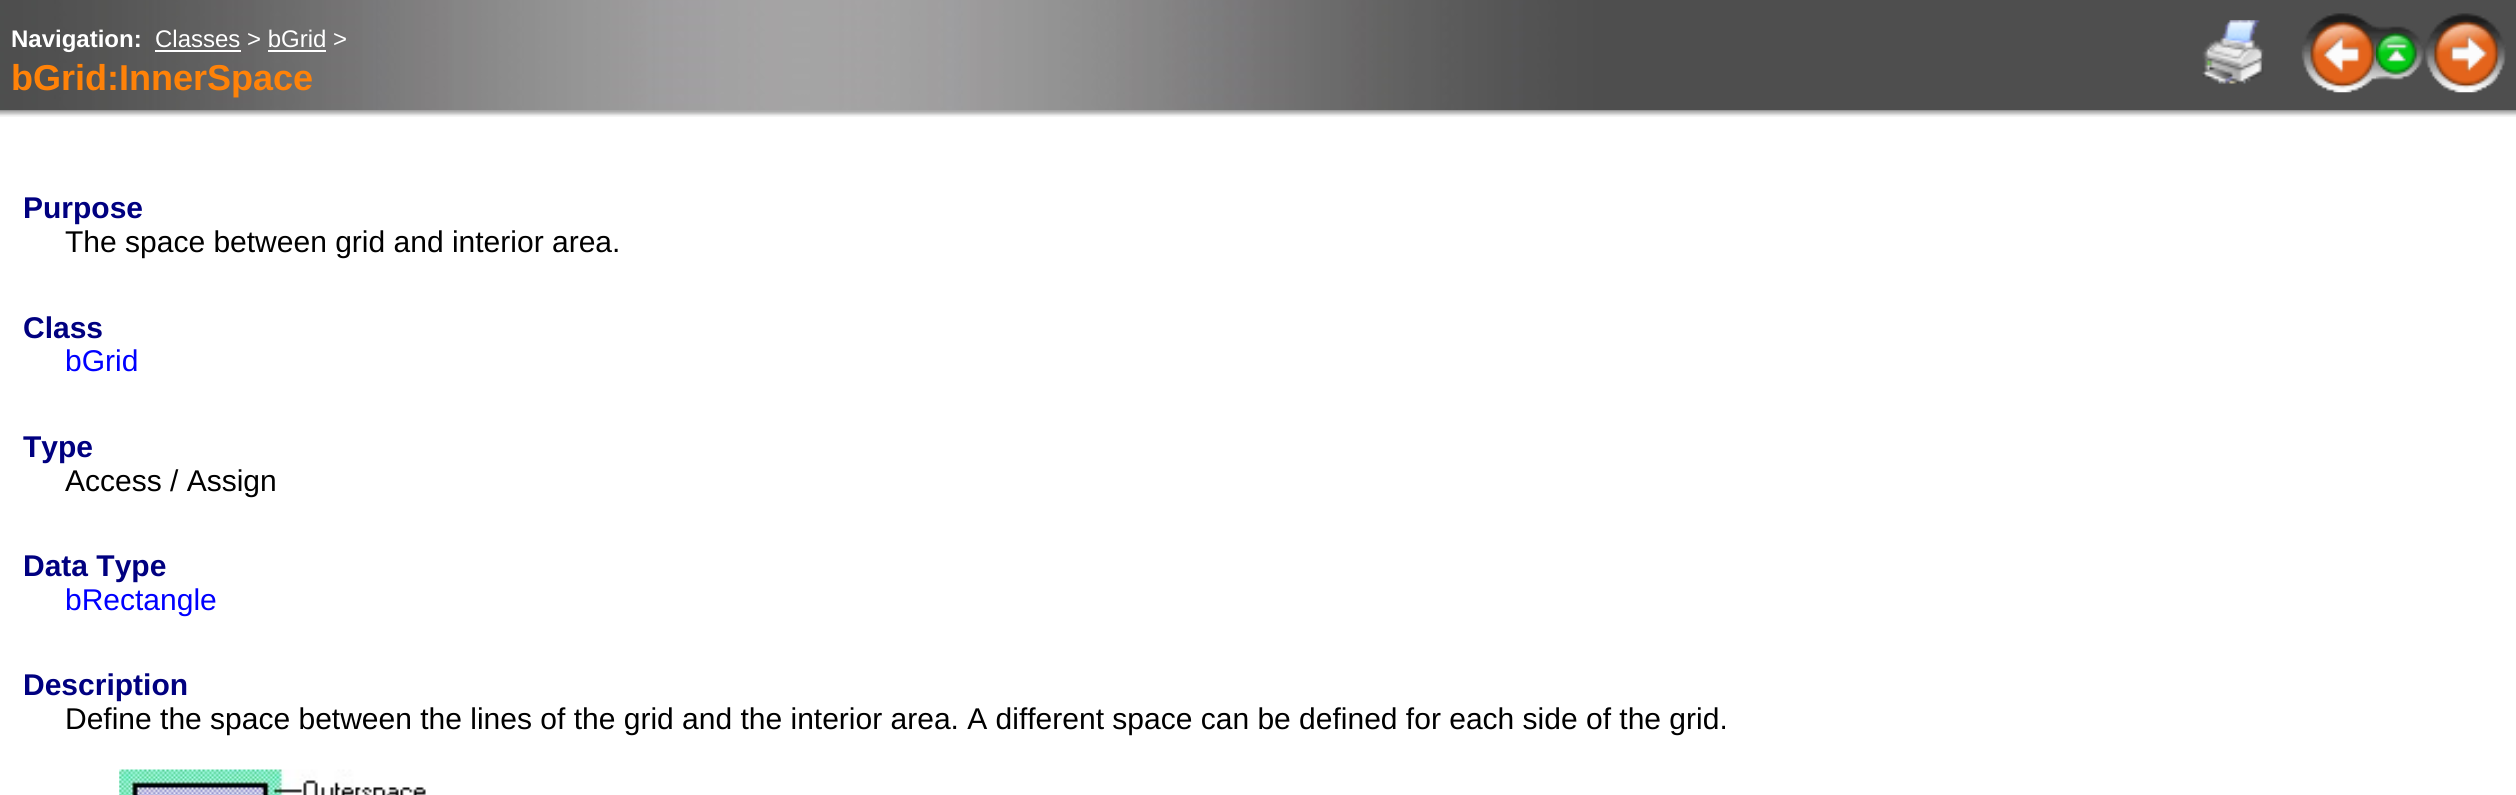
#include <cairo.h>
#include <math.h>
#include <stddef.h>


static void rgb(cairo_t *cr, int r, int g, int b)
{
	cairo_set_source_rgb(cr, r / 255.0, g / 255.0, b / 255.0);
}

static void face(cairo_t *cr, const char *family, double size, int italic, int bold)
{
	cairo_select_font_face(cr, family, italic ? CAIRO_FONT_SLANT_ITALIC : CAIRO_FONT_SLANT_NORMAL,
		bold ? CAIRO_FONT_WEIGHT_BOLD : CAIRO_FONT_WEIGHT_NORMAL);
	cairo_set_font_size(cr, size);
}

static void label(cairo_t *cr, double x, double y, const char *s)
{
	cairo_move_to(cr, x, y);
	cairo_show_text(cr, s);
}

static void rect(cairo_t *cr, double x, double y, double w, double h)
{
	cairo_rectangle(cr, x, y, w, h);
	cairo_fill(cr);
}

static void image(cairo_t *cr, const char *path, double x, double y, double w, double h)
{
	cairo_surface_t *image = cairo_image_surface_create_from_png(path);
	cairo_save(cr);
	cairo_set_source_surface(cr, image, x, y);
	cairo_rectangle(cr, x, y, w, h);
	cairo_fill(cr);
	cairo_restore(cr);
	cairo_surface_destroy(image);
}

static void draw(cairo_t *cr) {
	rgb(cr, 255, 255, 255);
	cairo_paint(cr);
	image(cr, "image0.png", 0, 0, 2516, 111);
	face(cr, "Liberation Sans", 24, 0, 1);
	rgb(cr, 255, 255, 255);
	label(cr, 11, 47, "Navigation:");
	face(cr, "Liberation Sans", 24, 0, 0);
	label(cr, 155, 47, "Classes > bGrid >");
	rect(cr, 155, 50, 86, 2);
	rect(cr, 268, 50, 58, 2);
	face(cr, "Liberation Sans", 36, 0, 1);
	rgb(cr, 255, 130, 8);
	label(cr, 11, 90, "bGrid:InnerSpace");
	image(cr, "image1.png", 2202, 20, 62, 64);
	image(cr, "image2.png", 2301, 13, 75, 80);
	image(cr, "image3.png", 2376, 26, 48, 54);
	image(cr, "image4.png", 2425, 13, 81, 80);
	image(cr, "image5.png", 0, 110, 2516, 7);
	face(cr, "Liberation Sans", 30, 0, 1);
	rgb(cr, 0, 0, 128);
	label(cr, 23, 218, "Purpose");
	face(cr, "Liberation Sans", 30, 0, 0);
	rgb(cr, 0, 0, 0);
	label(cr, 65, 252, "The space between grid and interior area.");
	face(cr, "Liberation Sans", 30, 0, 1);
	rgb(cr, 0, 0, 128);
	label(cr, 23, 338, "Class");
	face(cr, "Liberation Sans", 30, 0, 0);
	rgb(cr, 0, 0, 255);
	label(cr, 65, 371, "bGrid");
	face(cr, "Liberation Sans", 30, 0, 1);
	rgb(cr, 0, 0, 128);
	label(cr, 23, 457, "Type");
	face(cr, "Liberation Sans", 30, 0, 0);
	rgb(cr, 0, 0, 0);
	label(cr, 65, 491, "Access / Assign");
	face(cr, "Liberation Sans", 30, 0, 1);
	rgb(cr, 0, 0, 128);
	label(cr, 23, 576, "Data Type");
	face(cr, "Liberation Sans", 30, 0, 0);
	rgb(cr, 0, 0, 255);
	label(cr, 65, 610, "bRectangle");
	face(cr, "Liberation Sans", 30, 0, 1);
	rgb(cr, 0, 0, 128);
	label(cr, 23, 695, "Description");
	face(cr, "Liberation Sans", 30, 0, 0);
	rgb(cr, 0, 0, 0);
	label(cr, 65, 729, "Define the space between the lines of the grid and the interior area. A different space can be defined for each side of the grid.");
	image(cr, "image6.png", 119, 769, 307, 26);
}

int main(void) {
	cairo_surface_t *surface = cairo_image_surface_create(CAIRO_FORMAT_RGB24, 2516, 795);
	cairo_t *cr = cairo_create(surface);
	cairo_font_options_t *options = cairo_font_options_create();
	cairo_font_options_set_hint_metrics(options, CAIRO_HINT_METRICS_OFF);
	cairo_font_options_set_hint_style(options, CAIRO_HINT_STYLE_NONE);
	cairo_set_font_options(cr, options);
	cairo_set_miter_limit(cr, 4);
	draw(cr);
	cairo_surface_write_to_png(surface, "render.png");
	cairo_font_options_destroy(options);
	cairo_destroy(cr);
	cairo_surface_destroy(surface);
	return 0;
}
